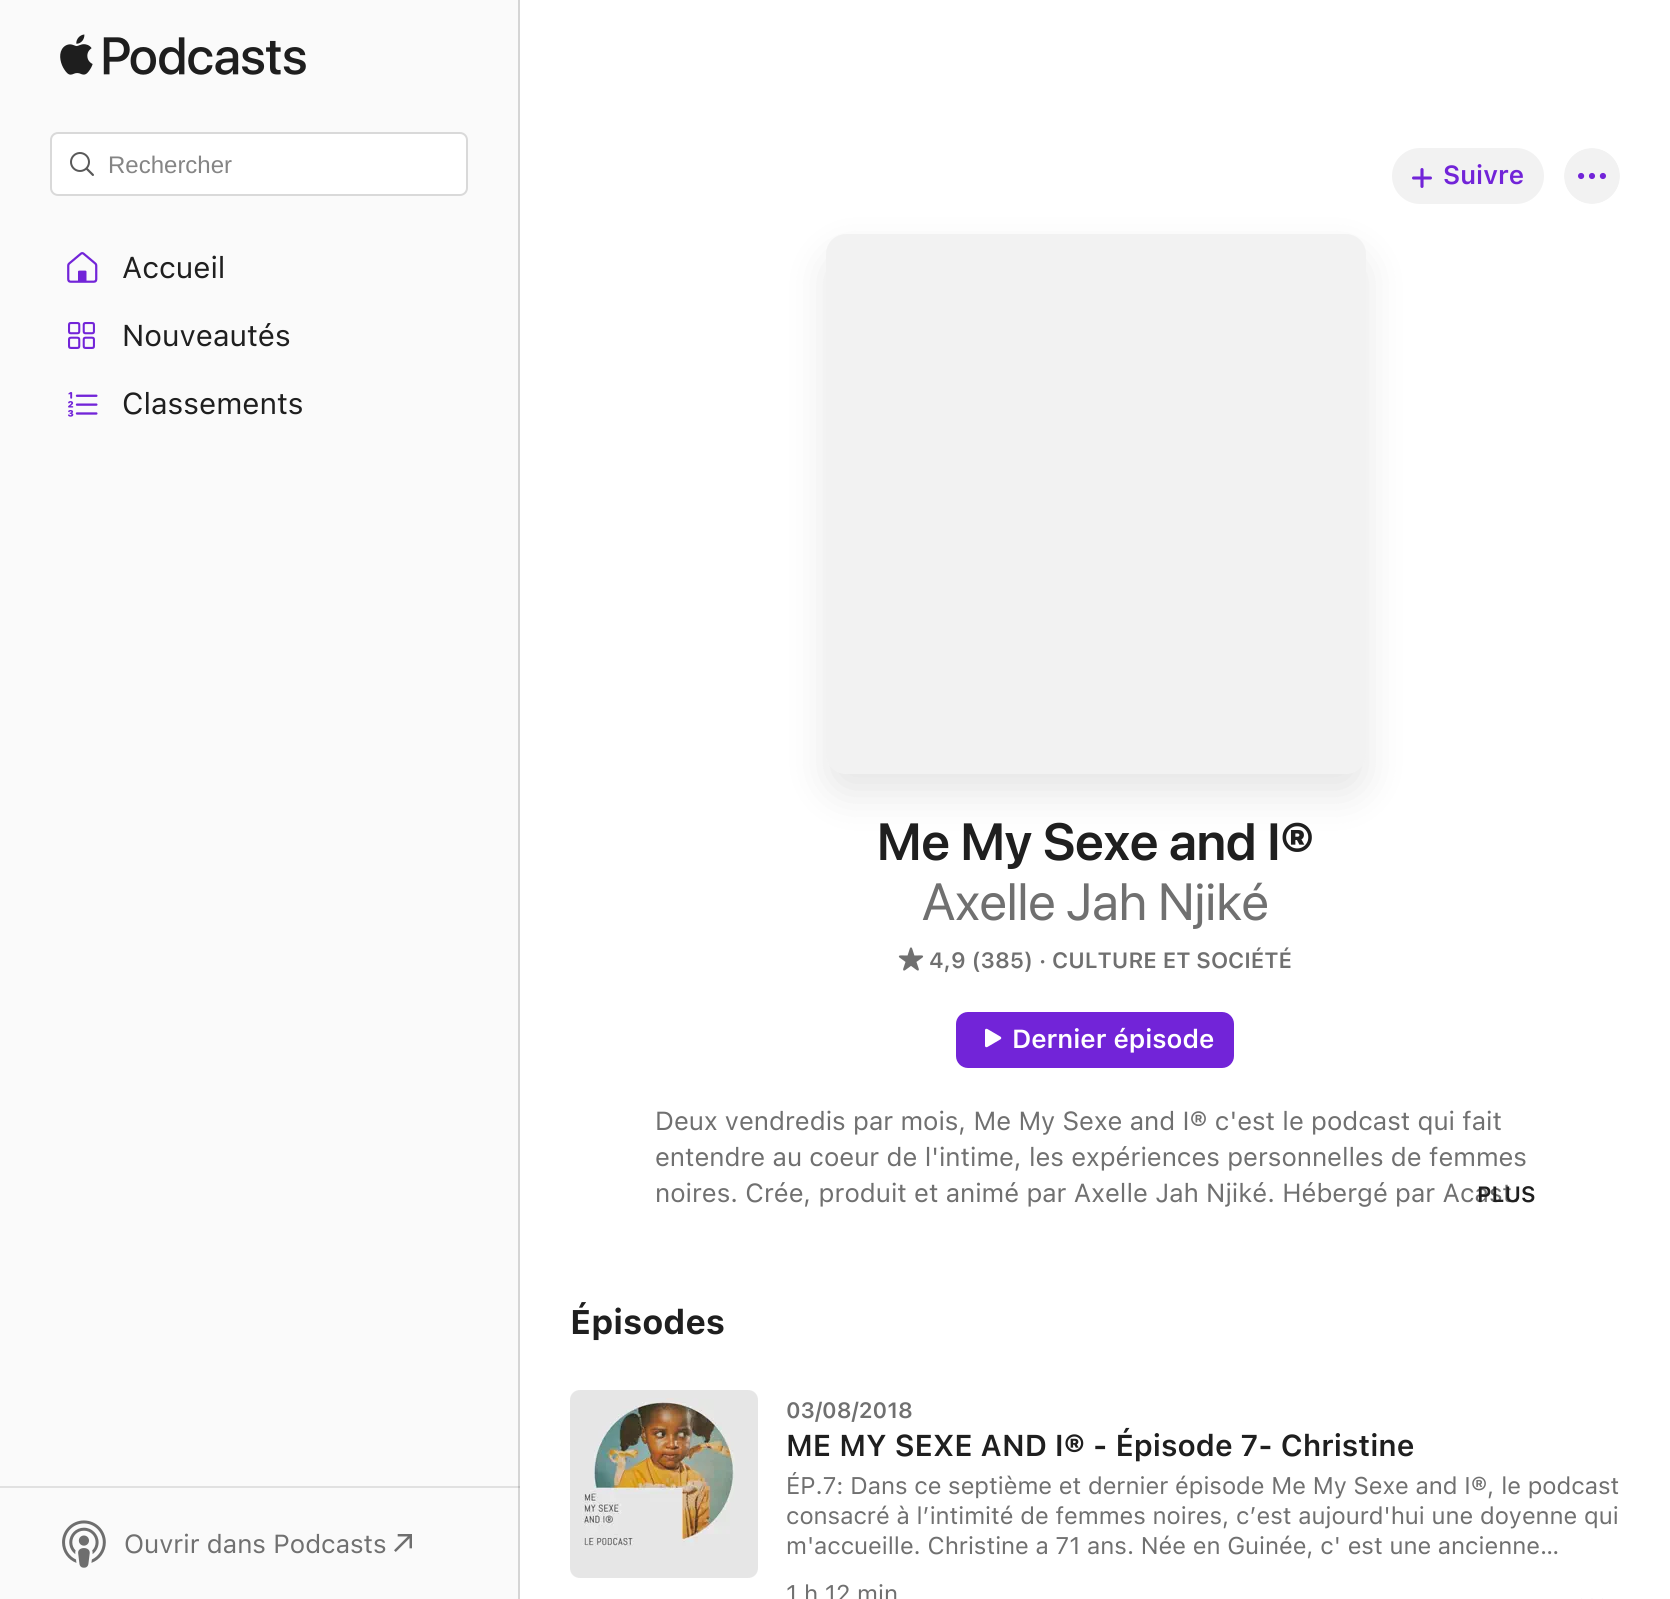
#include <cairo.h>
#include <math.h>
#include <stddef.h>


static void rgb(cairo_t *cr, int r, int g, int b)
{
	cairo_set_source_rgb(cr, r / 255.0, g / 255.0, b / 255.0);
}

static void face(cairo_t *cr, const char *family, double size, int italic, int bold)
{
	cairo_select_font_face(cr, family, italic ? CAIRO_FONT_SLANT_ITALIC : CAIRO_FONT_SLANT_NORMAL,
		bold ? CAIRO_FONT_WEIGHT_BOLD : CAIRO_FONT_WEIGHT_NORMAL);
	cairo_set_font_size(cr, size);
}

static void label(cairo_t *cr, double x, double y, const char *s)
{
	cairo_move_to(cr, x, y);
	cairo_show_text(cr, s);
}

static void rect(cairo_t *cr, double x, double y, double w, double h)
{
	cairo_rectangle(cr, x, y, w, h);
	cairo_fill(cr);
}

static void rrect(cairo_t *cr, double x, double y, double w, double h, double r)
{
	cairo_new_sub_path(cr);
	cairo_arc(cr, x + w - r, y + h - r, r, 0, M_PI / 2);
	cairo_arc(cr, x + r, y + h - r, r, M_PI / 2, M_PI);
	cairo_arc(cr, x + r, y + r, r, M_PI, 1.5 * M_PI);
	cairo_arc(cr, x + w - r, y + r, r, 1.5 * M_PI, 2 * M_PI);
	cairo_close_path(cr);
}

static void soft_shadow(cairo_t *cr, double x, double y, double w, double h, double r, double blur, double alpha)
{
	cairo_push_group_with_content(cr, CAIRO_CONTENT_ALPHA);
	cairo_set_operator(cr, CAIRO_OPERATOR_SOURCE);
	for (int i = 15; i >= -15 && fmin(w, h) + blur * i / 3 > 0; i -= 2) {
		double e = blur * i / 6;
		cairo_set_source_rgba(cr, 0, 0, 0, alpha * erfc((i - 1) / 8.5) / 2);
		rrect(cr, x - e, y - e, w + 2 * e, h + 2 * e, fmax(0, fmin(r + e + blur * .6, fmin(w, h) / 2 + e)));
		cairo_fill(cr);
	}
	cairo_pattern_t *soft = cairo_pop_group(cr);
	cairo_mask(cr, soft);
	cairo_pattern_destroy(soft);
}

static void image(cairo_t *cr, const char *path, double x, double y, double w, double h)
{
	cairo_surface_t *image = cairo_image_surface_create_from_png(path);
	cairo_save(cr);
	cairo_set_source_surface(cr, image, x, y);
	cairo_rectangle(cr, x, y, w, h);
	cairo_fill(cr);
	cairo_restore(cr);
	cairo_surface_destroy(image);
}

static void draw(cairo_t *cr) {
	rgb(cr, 255, 255, 255);
	cairo_paint(cr);
	rgb(cr, 250, 250, 250);
	rect(cr, 0, 0, 518, 1599);
	rgb(cr, 225, 225, 225);
	rect(cr, 0, 1486, 520, 2);
	rgb(cr, 213, 213, 213);
	rect(cr, 518, 0, 2, 1599);
	rgb(cr, 192, 192, 192);
	rect(cr, 518, 1486, 2, 2);
	image(cr, "image0.png", 60, 34, 246, 41);
	rgb(cr, 255, 255, 255);
	rrect(cr, 51, 133, 416, 62, 7);
	cairo_fill_preserve(cr);
	rgb(cr, 217, 217, 217);
	cairo_stroke(cr);
	image(cr, "image1.png", 70, 152, 24, 24);
	face(cr, "Liberation Sans", 24, 0, 0);
	rgb(cr, 133, 133, 133);
	label(cr, 108, 173, "Rechercher");
	image(cr, "image2.png", 67, 252, 31, 31);
	face(cr, "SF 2", 30, 0, 0);
	rgb(cr, 31, 31, 31);
	label(cr, 122, 278, "Accueil");
	image(cr, "image3.png", 68, 322, 27, 27);
	label(cr, 122, 346, "Nouveautés");
	image(cr, "image4.png", 68, 392, 30, 25);
	label(cr, 122, 414, "Classements");
	image(cr, "image5.png", 62, 1520, 44, 48);
	face(cr, "SF 2", 26, 0, 0);
	rgb(cr, 112, 112, 112);
	label(cr, 124, 1553, "Ouvrir dans Podcasts");
	image(cr, "image6.png", 394, 1534, 18, 18);
	rgb(cr, 242, 242, 242);
	rrect(cr, 1392, 148, 152, 56, 28);
	cairo_fill(cr);
	image(cr, "image7.png", 1412, 168, 20, 20);
	face(cr, "SF SemiBold", 26, 0, 0);
	rgb(cr, 114, 36, 216);
	label(cr, 1443, 184, "Suivre");
	image(cr, "image8.png", 1564, 148, 56, 56);
	rgb(cr, 0, 0, 0);
	soft_shadow(cr, 826, 254, 540, 540, 20, 20, 0.1);
	rgb(cr, 255, 255, 255);
	rrect(cr, 826, 234, 540, 540, 20);
	cairo_fill(cr);
	cairo_set_source_rgba(cr, 0.502, 0.502, 0.502, 0.1);
	cairo_new_path(cr);
	cairo_move_to(cr, 846, 234);
	cairo_line_to(cr, 1346, 234);
	cairo_curve_to(cr, 1357, 234, 1366, 243, 1366, 254);
	cairo_line_to(cr, 1366, 754);
	cairo_curve_to(cr, 1366, 765, 1357, 774, 1346, 774);
	cairo_line_to(cr, 846, 774);
	cairo_curve_to(cr, 835, 774, 826, 765, 826, 754);
	cairo_line_to(cr, 826, 254);
	cairo_curve_to(cr, 826, 243, 835, 234, 846, 234);
	cairo_close_path(cr);
	cairo_fill(cr);
	face(cr, "SF 2 SemiBold", 52, 0, 0);
	rgb(cr, 31, 31, 31);
	label(cr, 877, 860, "Me My Sexe and I®");
	face(cr, "SF", 52, 0, 0);
	rgb(cr, 112, 112, 112);
	label(cr, 922, 920, "Axelle Jah Njiké");
	image(cr, "image9.png", 898, 947, 26, 24);
	face(cr, "SF SemiBold", 22, 0, 0);
	label(cr, 929, 968, "4,9 (385) · CULTURE ET SOCIÉTÉ");
	rgb(cr, 114, 36, 216);
	rrect(cr, 956, 1012, 278, 56, 12);
	cairo_fill(cr);
	image(cr, "image10.png", 985, 1028, 17, 20);
	face(cr, "SF SemiBold", 26, 0, 0);
	rgb(cr, 255, 255, 255);
	label(cr, 1012, 1048, "Dernier épisode");
	face(cr, "SF 2", 26, 0, 0);
	rgb(cr, 112, 112, 112);
	label(cr, 655, 1130, "Deux vendredis par mois, Me My Sexe and I® c'est le podcast qui fait");
	label(cr, 655, 1166, "entendre au coeur de l'intime, les expériences personnelles de femmes");
	label(cr, 655, 1202, "noires. Crée, produit et animé par Axelle Jah Njiké. Hébergé par Acast.");
	face(cr, "SF SemiBold", 22, 0, 0);
	rgb(cr, 31, 31, 31);
	label(cr, 1477, 1202, "PLUS");
	face(cr, "SF", 34, 0, 1);
	label(cr, 570, 1334, "Épisodes");
	rgb(cr, 242, 242, 242);
	rrect(cr, 570, 1390, 188, 188, 10);
	cairo_fill(cr);
	image(cr, "image11.png", 582, 1398, 153, 148);
	cairo_set_source_rgba(cr, 0.502, 0.502, 0.502, 0.1);
	cairo_new_path(cr);
	cairo_move_to(cr, 580, 1390);
	cairo_line_to(cr, 748, 1390);
	cairo_curve_to(cr, 754, 1390, 758, 1394, 758, 1400);
	cairo_line_to(cr, 758, 1568);
	cairo_curve_to(cr, 758, 1574, 754, 1578, 748, 1578);
	cairo_line_to(cr, 580, 1578);
	cairo_curve_to(cr, 574, 1578, 570, 1574, 570, 1568);
	cairo_line_to(cr, 570, 1400);
	cairo_curve_to(cr, 570, 1394, 574, 1390, 580, 1390);
	cairo_close_path(cr);
	cairo_fill(cr);
	face(cr, "SF SemiBold", 22, 0, 0);
	rgb(cr, 112, 112, 112);
	label(cr, 786, 1418, "03/08/2018");
	face(cr, "SF SemiBold", 30, 0, 0);
	rgb(cr, 31, 31, 31);
	label(cr, 786, 1456, "ME MY SEXE AND I® - Épisode 7- Christine");
	cairo_save(cr);
	cairo_rectangle(cr, 786, 1472, 834, 90);
	cairo_clip(cr);
	face(cr, "SF 2", 24, 0, 0);
	rgb(cr, 112, 112, 112);
	label(cr, 786, 1494, "ÉP.7: Dans ce septième et dernier épisode Me My Sexe and I®, le podcast");
	cairo_restore(cr);
	face(cr, "SF 2", 24, 0, 0);
	rgb(cr, 112, 112, 112);
	label(cr, 786, 1524, "consacré à l’intimité de femmes noires, c’est aujourd'hui une doyenne qui");
	label(cr, 786, 1554, "m'accueille. Christine a 71 ans. Née en Guinée, c' est une ancienne…");
	label(cr, 786, 1602, "1 h 12 min");
	image(cr, "image12.png", 1581, 1598, 22, 1);
}

int main(void) {
	cairo_surface_t *surface = cairo_image_surface_create(CAIRO_FORMAT_RGB24, 1670, 1599);
	cairo_t *cr = cairo_create(surface);
	cairo_font_options_t *options = cairo_font_options_create();
	cairo_font_options_set_hint_metrics(options, CAIRO_HINT_METRICS_OFF);
	cairo_font_options_set_hint_style(options, CAIRO_HINT_STYLE_NONE);
	cairo_set_font_options(cr, options);
	cairo_set_miter_limit(cr, 4);
	draw(cr);
	cairo_surface_write_to_png(surface, "render.png");
	cairo_font_options_destroy(options);
	cairo_destroy(cr);
	cairo_surface_destroy(surface);
	return 0;
}
